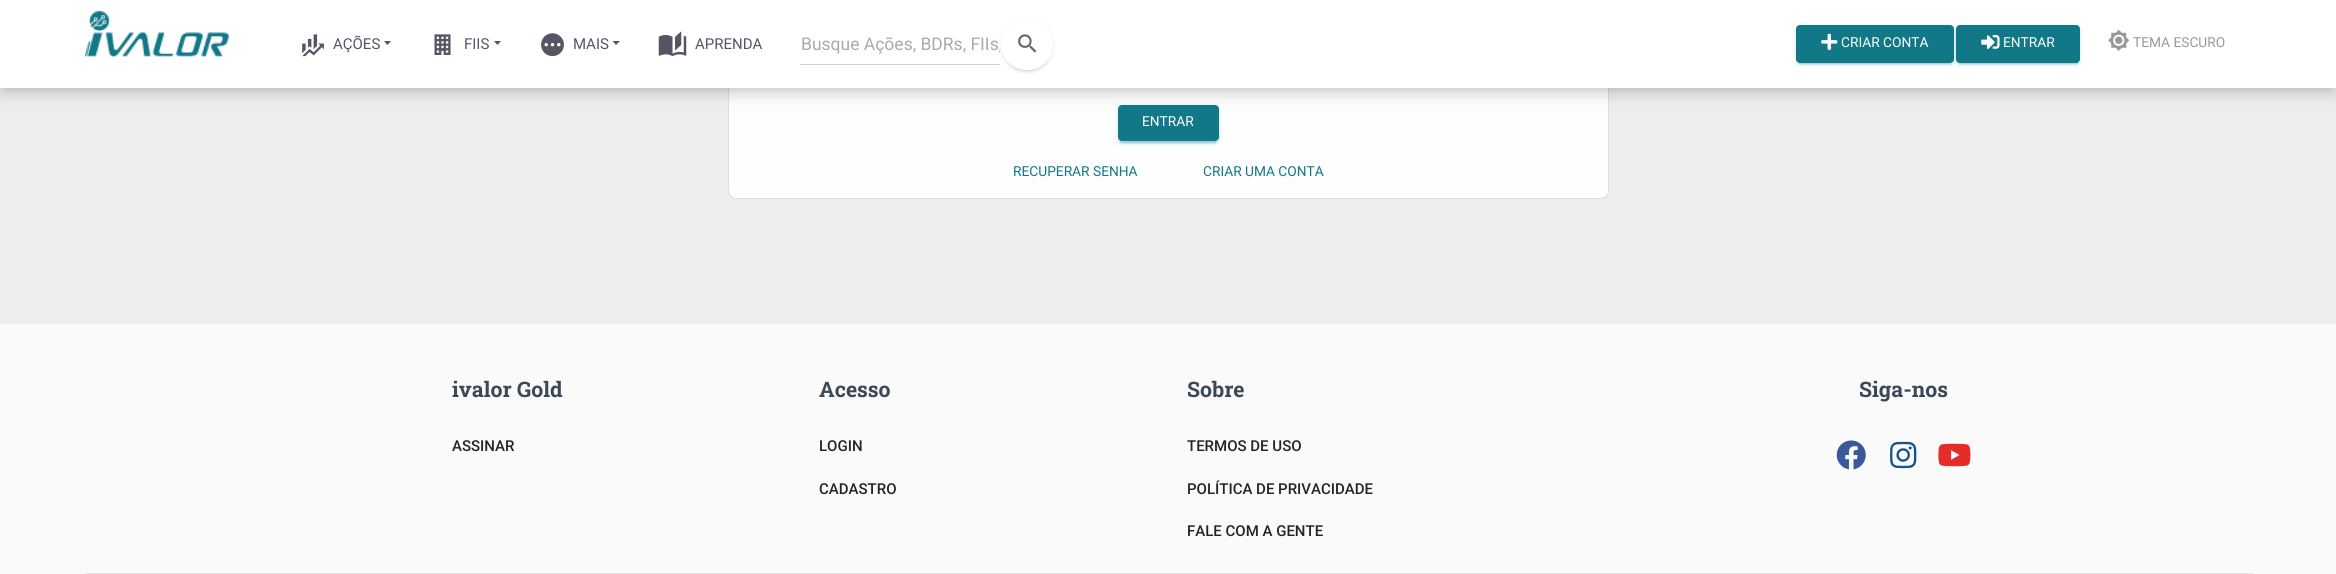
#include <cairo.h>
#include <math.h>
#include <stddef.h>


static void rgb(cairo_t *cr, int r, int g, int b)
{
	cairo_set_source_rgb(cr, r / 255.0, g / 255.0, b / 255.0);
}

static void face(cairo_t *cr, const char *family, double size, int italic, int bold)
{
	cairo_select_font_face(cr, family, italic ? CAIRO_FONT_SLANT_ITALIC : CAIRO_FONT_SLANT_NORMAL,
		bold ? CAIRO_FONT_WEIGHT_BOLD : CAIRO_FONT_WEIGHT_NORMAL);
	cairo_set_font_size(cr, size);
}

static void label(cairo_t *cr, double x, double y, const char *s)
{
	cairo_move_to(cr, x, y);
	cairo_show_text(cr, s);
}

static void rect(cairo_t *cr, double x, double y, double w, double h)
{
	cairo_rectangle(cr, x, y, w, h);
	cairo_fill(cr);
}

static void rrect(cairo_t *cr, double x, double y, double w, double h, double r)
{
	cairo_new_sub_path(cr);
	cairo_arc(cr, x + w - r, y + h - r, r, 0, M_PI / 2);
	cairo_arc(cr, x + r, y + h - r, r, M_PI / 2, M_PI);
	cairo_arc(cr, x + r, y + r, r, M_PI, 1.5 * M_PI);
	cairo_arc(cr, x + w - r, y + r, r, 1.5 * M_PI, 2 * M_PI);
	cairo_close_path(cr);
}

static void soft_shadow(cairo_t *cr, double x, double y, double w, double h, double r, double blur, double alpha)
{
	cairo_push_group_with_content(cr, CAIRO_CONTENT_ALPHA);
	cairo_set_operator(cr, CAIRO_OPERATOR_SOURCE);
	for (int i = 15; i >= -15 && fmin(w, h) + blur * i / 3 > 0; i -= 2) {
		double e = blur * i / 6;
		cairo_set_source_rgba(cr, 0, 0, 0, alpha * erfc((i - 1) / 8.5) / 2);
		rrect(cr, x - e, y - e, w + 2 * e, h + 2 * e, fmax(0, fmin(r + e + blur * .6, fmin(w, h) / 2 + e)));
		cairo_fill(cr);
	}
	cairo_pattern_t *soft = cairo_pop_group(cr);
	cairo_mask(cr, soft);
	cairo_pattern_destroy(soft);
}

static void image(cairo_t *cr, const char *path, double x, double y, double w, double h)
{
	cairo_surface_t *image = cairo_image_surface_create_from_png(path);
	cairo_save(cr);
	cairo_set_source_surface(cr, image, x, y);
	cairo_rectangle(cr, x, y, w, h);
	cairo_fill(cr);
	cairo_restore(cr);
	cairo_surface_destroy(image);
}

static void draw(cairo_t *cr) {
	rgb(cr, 250, 250, 250);
	cairo_paint(cr);
	rgb(cr, 238, 238, 238);
	rect(cr, 0, 88, 2336, 236);
	rgb(cr, 254, 254, 254);
	rrect(cr, 728.5, -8.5, 880, 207, 7.5);
	cairo_fill_preserve(cr);
	rgb(cr, 221, 221, 221);
	cairo_set_line_width(cr, 1);
	cairo_stroke(cr);
	rgb(cr, 17, 120, 136);
	soft_shadow(cr, 1118, 106, 101, 37, 4, 3, 0.12);
	soft_shadow(cr, 1120, 111, 96, 32, 1, 0.5, 0.2);
	soft_shadow(cr, 1118, 108, 101, 36, 4, 1, 0.14);
	rgb(cr, 17, 120, 136);
	rrect(cr, 1118, 105, 101, 36, 4);
	cairo_fill(cr);
	rgb(cr, 0, 0, 0);
	soft_shadow(cr, 6, 15, 2324, 75, 0, 6, 0.15);
	soft_shadow(cr, 0, 5, 2336, 88, 0, 11, 0.12);
	rgb(cr, 255, 255, 255);
	rect(cr, 0, 0, 2336, 88);
	image(cr, "image0.png", 84, 11, 145, 46);
	image(cr, "image1.png", 302, 34, 22, 23);
	face(cr, "Roboto", 15, 0, 0);
	rgb(cr, 85, 85, 102);
	label(cr, 333, 49, "AÇÕES");
	cairo_new_path(cr);
	cairo_move_to(cr, 384, 41);
	cairo_line_to(cr, 391, 41);
	cairo_line_to(cr, 387.5, 45);
	cairo_close_path(cr);
	cairo_fill(cr);
	image(cr, "image2.png", 434, 34, 17, 21);
	label(cr, 464, 49, "FIIS");
	cairo_new_path(cr);
	cairo_move_to(cr, 494, 41);
	cairo_line_to(cr, 501, 41);
	cairo_line_to(cr, 497.5, 45);
	cairo_close_path(cr);
	cairo_fill(cr);
	image(cr, "image3.png", 541, 33, 23, 24);
	label(cr, 573, 49, "MAIS");
	cairo_new_path(cr);
	cairo_move_to(cr, 612.5, 41);
	cairo_line_to(cr, 620, 41);
	cairo_line_to(cr, 616, 45);
	cairo_close_path(cr);
	cairo_fill(cr);
	image(cr, "image4.png", 658, 31, 29, 26);
	label(cr, 695, 49, "APRENDA");
	rgb(cr, 210, 210, 210);
	rect(cr, 800, 64, 200, 1);
	cairo_save(cr);
	cairo_rectangle(cr, 800, 34, 200, 20);
	cairo_clip(cr);
	face(cr, "Roboto", 17.5, 0, 0);
	rgb(cr, 170, 170, 170);
	label(cr, 801, 50, "Busque Ações, BDRs, FIIs,");
	cairo_restore(cr);
	rgb(cr, 153, 153, 153);
	soft_shadow(cr, 1001, 20, 52, 51, 25.5, 3, 0.12);
	soft_shadow(cr, 1004, 25, 46, 46, 23, 0.5, 0.2);
	soft_shadow(cr, 1001, 21, 52, 52, 26, 1, 0.14);
	rgb(cr, 255, 255, 255);
	rrect(cr, 1001, 19, 52, 51, 25.5);
	cairo_fill(cr);
	image(cr, "image5.png", 1018, 34, 19, 19);
	rgb(cr, 17, 120, 136);
	soft_shadow(cr, 1796, 26, 158, 38, 4, 3, 0.12);
	soft_shadow(cr, 1799, 31, 152, 33, 1, 0.5, 0.2);
	soft_shadow(cr, 1796, 28, 158, 37, 4, 1, 0.14);
	rgb(cr, 17, 120, 136);
	rrect(cr, 1796, 25, 158, 38, 4);
	cairo_fill(cr);
	image(cr, "image6.png", 1821, 33, 17, 17);
	face(cr, "Roboto", 13.75, 0, 0);
	rgb(cr, 255, 255, 255);
	label(cr, 1841, 47, "CRIAR CONTA");
	rgb(cr, 17, 120, 136);
	soft_shadow(cr, 1956, 26, 124, 38, 4, 3, 0.12);
	soft_shadow(cr, 1959, 31, 119, 33, 1, 0.5, 0.2);
	soft_shadow(cr, 1956, 28, 124, 37, 4, 1, 0.14);
	rgb(cr, 17, 120, 136);
	rrect(cr, 1956, 25, 124, 38, 4);
	cairo_fill(cr);
	image(cr, "image7.png", 1981, 35, 19, 14);
	rgb(cr, 255, 255, 255);
	label(cr, 2003, 47, "ENTRAR");
	image(cr, "image8.png", 2108, 29, 22, 22);
	rgb(cr, 153, 153, 153);
	label(cr, 2133, 47, "TEMA ESCURO");
	rgb(cr, 255, 255, 255);
	label(cr, 1142, 126, "ENTRAR");
	rgb(cr, 17, 120, 136);
	label(cr, 1013, 176, "RECUPERAR SENHA");
	label(cr, 1203, 176, "CRIAR UMA CONTA");
	face(cr, "Roboto Slab", 21.25, 0, 1);
	rgb(cr, 60, 72, 88);
	label(cr, 452, 397, "ivalor Gold");
	face(cr, "Roboto Medium", 15, 0, 0);
	rgb(cr, 33, 37, 41);
	label(cr, 452, 451, "ASSINAR");
	face(cr, "Roboto Slab", 21.25, 0, 1);
	rgb(cr, 60, 72, 88);
	label(cr, 819, 397, "Acesso");
	face(cr, "Roboto Medium", 15, 0, 0);
	rgb(cr, 33, 37, 41);
	label(cr, 819, 451, "LOGIN");
	label(cr, 819, 494, "CADASTRO");
	face(cr, "Roboto Slab", 21.25, 0, 1);
	rgb(cr, 60, 72, 88);
	label(cr, 1187, 397, "Sobre");
	face(cr, "Roboto Medium", 15, 0, 0);
	rgb(cr, 33, 37, 41);
	label(cr, 1187, 451, "TERMOS DE USO");
	label(cr, 1187, 494, "POLÍTICA DE PRIVACIDADE");
	label(cr, 1187, 536, "FALE COM A GENTE");
	face(cr, "Roboto Slab", 21.25, 0, 1);
	rgb(cr, 60, 72, 88);
	label(cr, 1859, 397, "Siga-nos");
	image(cr, "image9.png", 1836, 440, 30, 30);
	image(cr, "image10.png", 1890, 441, 27, 28);
	image(cr, "image11.png", 1938, 443, 33, 24);
	rgb(cr, 225, 225, 225);
	rect(cr, 85, 573, 2168, 1);
}

int main(void) {
	cairo_surface_t *surface = cairo_image_surface_create(CAIRO_FORMAT_RGB24, 2336, 574);
	cairo_t *cr = cairo_create(surface);
	cairo_font_options_t *options = cairo_font_options_create();
	cairo_font_options_set_hint_metrics(options, CAIRO_HINT_METRICS_OFF);
	cairo_font_options_set_hint_style(options, CAIRO_HINT_STYLE_NONE);
	cairo_set_font_options(cr, options);
	cairo_set_miter_limit(cr, 4);
	draw(cr);
	cairo_surface_write_to_png(surface, "render.png");
	cairo_font_options_destroy(options);
	cairo_destroy(cr);
	cairo_surface_destroy(surface);
	return 0;
}
